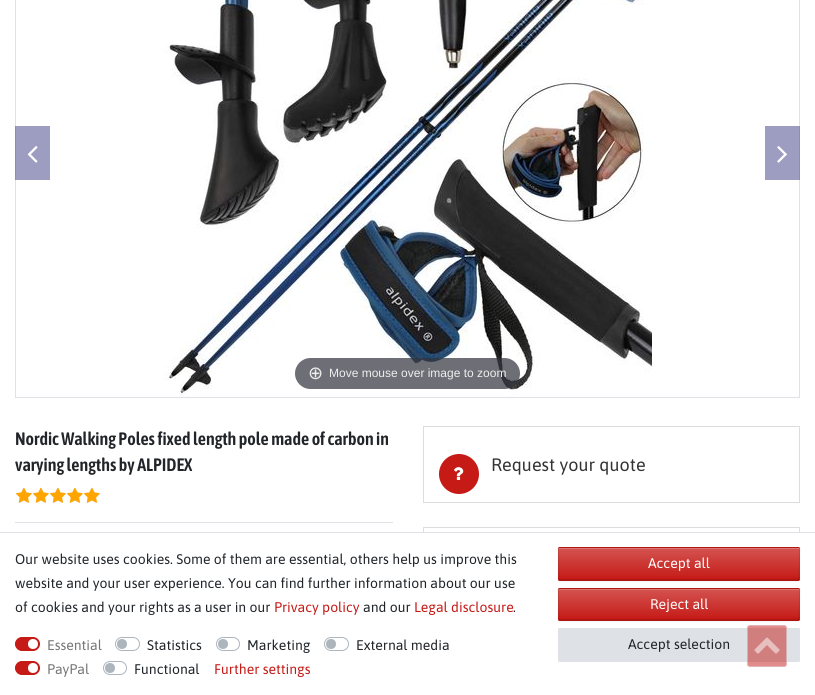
#include <cairo.h>
#include <math.h>
#include <stddef.h>


static void rgb(cairo_t *cr, int r, int g, int b)
{
	cairo_set_source_rgb(cr, r / 255.0, g / 255.0, b / 255.0);
}

static void face(cairo_t *cr, const char *family, double size, int italic, int bold)
{
	cairo_select_font_face(cr, family, italic ? CAIRO_FONT_SLANT_ITALIC : CAIRO_FONT_SLANT_NORMAL,
		bold ? CAIRO_FONT_WEIGHT_BOLD : CAIRO_FONT_WEIGHT_NORMAL);
	cairo_set_font_size(cr, size);
}

static void label(cairo_t *cr, double x, double y, const char *s)
{
	cairo_move_to(cr, x, y);
	cairo_show_text(cr, s);
}

static void rect(cairo_t *cr, double x, double y, double w, double h)
{
	cairo_rectangle(cr, x, y, w, h);
	cairo_fill(cr);
}

static void rrect(cairo_t *cr, double x, double y, double w, double h, double r)
{
	cairo_new_sub_path(cr);
	cairo_arc(cr, x + w - r, y + h - r, r, 0, M_PI / 2);
	cairo_arc(cr, x + r, y + h - r, r, M_PI / 2, M_PI);
	cairo_arc(cr, x + r, y + r, r, M_PI, 1.5 * M_PI);
	cairo_arc(cr, x + w - r, y + r, r, 1.5 * M_PI, 2 * M_PI);
	cairo_close_path(cr);
}

static void soft_shadow(cairo_t *cr, double x, double y, double w, double h, double r, double blur, double alpha)
{
	cairo_push_group_with_content(cr, CAIRO_CONTENT_ALPHA);
	cairo_set_operator(cr, CAIRO_OPERATOR_SOURCE);
	for (int i = 15; i >= -15 && fmin(w, h) + blur * i / 3 > 0; i -= 2) {
		double e = blur * i / 6;
		cairo_set_source_rgba(cr, 0, 0, 0, alpha * erfc((i - 1) / 8.5) / 2);
		rrect(cr, x - e, y - e, w + 2 * e, h + 2 * e, fmax(0, fmin(r + e + blur * .6, fmin(w, h) / 2 + e)));
		cairo_fill(cr);
	}
	cairo_pattern_t *soft = cairo_pop_group(cr);
	cairo_mask(cr, soft);
	cairo_pattern_destroy(soft);
}

static void image(cairo_t *cr, const char *path, double x, double y, double w, double h)
{
	cairo_surface_t *image = cairo_image_surface_create_from_png(path);
	cairo_save(cr);
	cairo_set_source_surface(cr, image, x, y);
	cairo_rectangle(cr, x, y, w, h);
	cairo_fill(cr);
	cairo_restore(cr);
	cairo_surface_destroy(image);
}

static void draw(cairo_t *cr) {
	cairo_pattern_t *gradient;
	rgb(cr, 255, 255, 255);
	cairo_paint(cr);
	cairo_rectangle(cr, 15.5, -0.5, 784, 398);
	rgb(cr, 222, 226, 230);
	cairo_set_line_width(cr, 1);
	cairo_stroke(cr);
	cairo_set_source_rgba(cr, 0.239, 0.231, 0.522, 0.5);
	rect(cr, 15, 126, 35, 54);
	image(cr, "image0.png", 27, 146, 11, 17);
	rect(cr, 765, 126, 35, 54);
	image(cr, "image1.png", 777, 146, 10, 17);
	image(cr, "image2.png", 164, 0, 488, 397);
	cairo_set_source_rgba(cr, 0.192, 0.2, 0.239, 0.7);
	rrect(cr, 295, 358, 225, 31, 15.5);
	cairo_fill(cr);
	face(cr, "DejaVu Sans", 18, 0, 0);
	rgb(cr, 238, 238, 238);
	label(cr, 308, 379, "⊕");
	face(cr, "Liberation Sans", 12, 0, 0);
	label(cr, 329, 377, "Move mouse over image to zoom");
	face(cr, "Asap Condensed SemiBold", 18, 0, 0);
	rgb(cr, 33, 37, 41);
	label(cr, 15, 445, "Nordic Walking Poles fixed length pole made of carbon in");
	label(cr, 15, 471, "varying lengths by ALPIDEX");
	image(cr, "image4.png", 16, 488, 16, 15);
	image(cr, "image3.png", 16, 487, 16, 16);
	image(cr, "image4.png", 33, 488, 16, 15);
	image(cr, "image3.png", 33, 487, 16, 16);
	image(cr, "image4.png", 50, 488, 16, 15);
	image(cr, "image3.png", 50, 487, 16, 16);
	image(cr, "image4.png", 67, 488, 16, 15);
	image(cr, "image3.png", 67, 487, 16, 16);
	image(cr, "image4.png", 84, 488, 16, 15);
	image(cr, "image3.png", 84, 487, 16, 16);
	rgb(cr, 222, 226, 230);
	rect(cr, 15, 522, 378, 1);
	cairo_rectangle(cr, 423.5, 426.5, 376, 76);
	rgb(cr, 221, 221, 221);
	cairo_stroke(cr);
	rgb(cr, 197, 26, 22);
	cairo_arc(cr, 459, 474, 20, 0, 2 * M_PI);
	cairo_fill(cr);
	image(cr, "image5.png", 454, 467, 10, 13);
	face(cr, "Asap", 18, 0, 0);
	rgb(cr, 51, 51, 51);
	label(cr, 491, 471, "Request your quote");
	cairo_rectangle(cr, 423.5, 527.5, 376, 76);
	rgb(cr, 221, 221, 221);
	cairo_stroke(cr);
	rgb(cr, 255, 255, 255);
	rect(cr, 423, 533, 377, 71);
	rgb(cr, 222, 226, 230);
	rect(cr, 0, 532, 815, 1);
	face(cr, "Asap", 14, 0, 0);
	rgb(cr, 33, 37, 41);
	label(cr, 15, 564, "Our website uses cookies. Some of them are essential, others help us improve this");
	label(cr, 15, 588, "website and your user experience. You can find further information about our use");
	label(cr, 15, 612, "of cookies and your rights as a user in our");
	rgb(cr, 197, 26, 22);
	label(cr, 274, 612, "Privacy policy");
	rgb(cr, 33, 37, 41);
	label(cr, 363, 612, "and our");
	rgb(cr, 197, 26, 22);
	label(cr, 414, 612, "Legal disclosure");
	rgb(cr, 33, 37, 41);
	label(cr, 513, 612, ".");
	rgb(cr, 197, 26, 22);
	rrect(cr, 15.5, 637.5, 24, 13, 6.5);
	cairo_fill_preserve(cr);
	cairo_stroke(cr);
	rgb(cr, 255, 255, 255);
	cairo_arc(cr, 33, 644, 5, 0, 2 * M_PI);
	cairo_fill(cr);
	rgb(cr, 118, 118, 118);
	label(cr, 47, 650, "Essential");
	rrect(cr, 115.5, 637.5, 24, 13, 6.5);
	rgb(cr, 173, 181, 189);
	cairo_stroke(cr);
	cairo_arc(cr, 122, 644, 5, 0, 2 * M_PI);
	cairo_fill(cr);
	rgb(cr, 33, 37, 41);
	label(cr, 147, 650, "Statistics");
	rrect(cr, 216.5, 637.5, 23, 13, 6.5);
	rgb(cr, 173, 181, 189);
	cairo_stroke(cr);
	cairo_arc(cr, 223, 644, 5, 0, 2 * M_PI);
	cairo_fill(cr);
	rgb(cr, 33, 37, 41);
	label(cr, 247, 650, "Marketing");
	rrect(cr, 324.5, 637.5, 24, 13, 6.5);
	rgb(cr, 173, 181, 189);
	cairo_stroke(cr);
	cairo_arc(cr, 331, 644, 5, 0, 2 * M_PI);
	cairo_fill(cr);
	rgb(cr, 33, 37, 41);
	label(cr, 356, 650, "External media");
	rgb(cr, 197, 26, 22);
	rrect(cr, 15.5, 661.5, 24, 13, 6.5);
	cairo_fill_preserve(cr);
	cairo_stroke(cr);
	rgb(cr, 255, 255, 255);
	cairo_arc(cr, 33, 668, 5, 0, 2 * M_PI);
	cairo_fill(cr);
	rgb(cr, 118, 118, 118);
	label(cr, 47, 674, "PayPal");
	rrect(cr, 103.5, 661.5, 23, 13, 6.5);
	rgb(cr, 173, 181, 189);
	cairo_stroke(cr);
	cairo_arc(cr, 110, 668, 5, 0, 2 * M_PI);
	cairo_fill(cr);
	rgb(cr, 33, 37, 41);
	label(cr, 134, 674, "Functional");
	rgb(cr, 197, 26, 22);
	label(cr, 214, 674, "Further settings");
	rgb(cr, 0, 0, 0);
	soft_shadow(cr, 558, 548, 242, 34, 1.5, 1, 0.05);
	rgb(cr, 197, 26, 22);
	rrect(cr, 558, 547, 242, 34, 1.5);
	cairo_fill(cr);
	gradient = cairo_pattern_create_linear(679, 548, 679, 580);
	cairo_pattern_add_color_stop_rgba(gradient, 0, 1, 1, 1, 0.25);
	cairo_pattern_add_color_stop_rgba(gradient, 1, 1, 1, 1, 0);
	cairo_set_source(cr, gradient);
	cairo_pattern_destroy(gradient);
	rect(cr, 558, 548, 242, 29);
	rgb(cr, 220, 117, 115);
	cairo_set_fill_rule(cr, CAIRO_FILL_RULE_EVEN_ODD);
	cairo_new_path(cr);
	cairo_move_to(cr, 559, 549);
	cairo_line_to(cr, 799, 549);
	cairo_line_to(cr, 799, 548);
	cairo_line_to(cr, 679, 548);
	cairo_line_to(cr, 560, 548);
	cairo_line_to(cr, 559, 548);
	cairo_close_path(cr);
	cairo_move_to(cr, 799, 575);
	cairo_line_to(cr, 799, 580);
	cairo_close_path(cr);
	cairo_fill(cr);
	cairo_new_path(cr);
	cairo_move_to(cr, 799, 580);
	cairo_line_to(cr, 559, 580);
	cairo_set_source_rgba(cr, 0, 0, 0, 0.25);
	cairo_stroke(cr);
	cairo_new_path(cr);
	cairo_move_to(cr, 559, 580);
	cairo_line_to(cr, 558.5, 553.5);
	cairo_curve_to(cr, 558.5, 552, 557.5, 547.5, 559.5, 547.5);
	cairo_line_to(cr, 798.5, 547.5);
	cairo_curve_to(cr, 800.5, 547.5, 799.5, 552, 799.5, 553.5);
	cairo_line_to(cr, 799, 580);
	cairo_set_source_rgba(cr, 0, 0, 0, 0.1);
	cairo_stroke(cr);
	rgb(cr, 255, 255, 255);
	label(cr, 648, 568, "Accept all");
	rgb(cr, 0, 0, 0);
	soft_shadow(cr, 558, 589, 242, 33, 1.5, 1, 0.05);
	rgb(cr, 197, 26, 22);
	rrect(cr, 558, 588, 242, 33, 1.5);
	cairo_fill(cr);
	gradient = cairo_pattern_create_linear(679, 589, 679, 620);
	cairo_pattern_add_color_stop_rgba(gradient, 0, 1, 1, 1, 0.25);
	cairo_pattern_add_color_stop_rgba(gradient, 1, 1, 1, 1, 0);
	cairo_set_source(cr, gradient);
	cairo_pattern_destroy(gradient);
	rect(cr, 558, 589, 242, 28);
	rgb(cr, 220, 117, 115);
	cairo_new_path(cr);
	cairo_move_to(cr, 559, 590);
	cairo_line_to(cr, 799, 590);
	cairo_line_to(cr, 799, 589);
	cairo_line_to(cr, 679, 589);
	cairo_line_to(cr, 560, 589);
	cairo_close_path(cr);
	cairo_move_to(cr, 799, 616);
	cairo_line_to(cr, 799, 620);
	cairo_close_path(cr);
	cairo_fill(cr);
	cairo_new_path(cr);
	cairo_move_to(cr, 799, 620);
	cairo_line_to(cr, 559, 620);
	cairo_set_source_rgba(cr, 0, 0, 0, 0.25);
	cairo_stroke(cr);
	cairo_new_path(cr);
	cairo_move_to(cr, 559, 620);
	cairo_line_to(cr, 558.5, 594.5);
	cairo_curve_to(cr, 558.5, 592.5, 557.5, 588.5, 559.5, 588.5);
	cairo_line_to(cr, 798.5, 588.5);
	cairo_curve_to(cr, 800.5, 588.5, 799.5, 592.5, 799.5, 594.5);
	cairo_line_to(cr, 799, 620);
	cairo_set_source_rgba(cr, 0, 0, 0, 0.1);
	cairo_stroke(cr);
	rgb(cr, 255, 255, 255);
	label(cr, 650, 609, "Reject all");
	rgb(cr, 222, 226, 230);
	rrect(cr, 558.5, 628.5, 241, 33, 1);
	cairo_fill_preserve(cr);
	cairo_stroke(cr);
	rgb(cr, 33, 37, 41);
	label(cr, 628, 649, "Accept selection");
	cairo_set_source_rgba(cr, 0.773, 0.102, 0.086, 0.5);
	rrect(cr, 747, 625, 40, 42, 3);
	cairo_fill(cr);
	rrect(cr, 747.5, 625.5, 39, 41, 2.5);
	cairo_set_source_rgba(cr, 0.871, 0.886, 0.902, 0.5);
	cairo_stroke(cr);
	image(cr, "image6.png", 754, 637, 26, 17);
}

int main(void) {
	cairo_surface_t *surface = cairo_image_surface_create(CAIRO_FORMAT_RGB24, 815, 695);
	cairo_t *cr = cairo_create(surface);
	cairo_font_options_t *options = cairo_font_options_create();
	cairo_font_options_set_hint_metrics(options, CAIRO_HINT_METRICS_OFF);
	cairo_font_options_set_hint_style(options, CAIRO_HINT_STYLE_NONE);
	cairo_set_font_options(cr, options);
	cairo_set_miter_limit(cr, 4);
	draw(cr);
	cairo_surface_write_to_png(surface, "render.png");
	cairo_font_options_destroy(options);
	cairo_destroy(cr);
	cairo_surface_destroy(surface);
	return 0;
}
